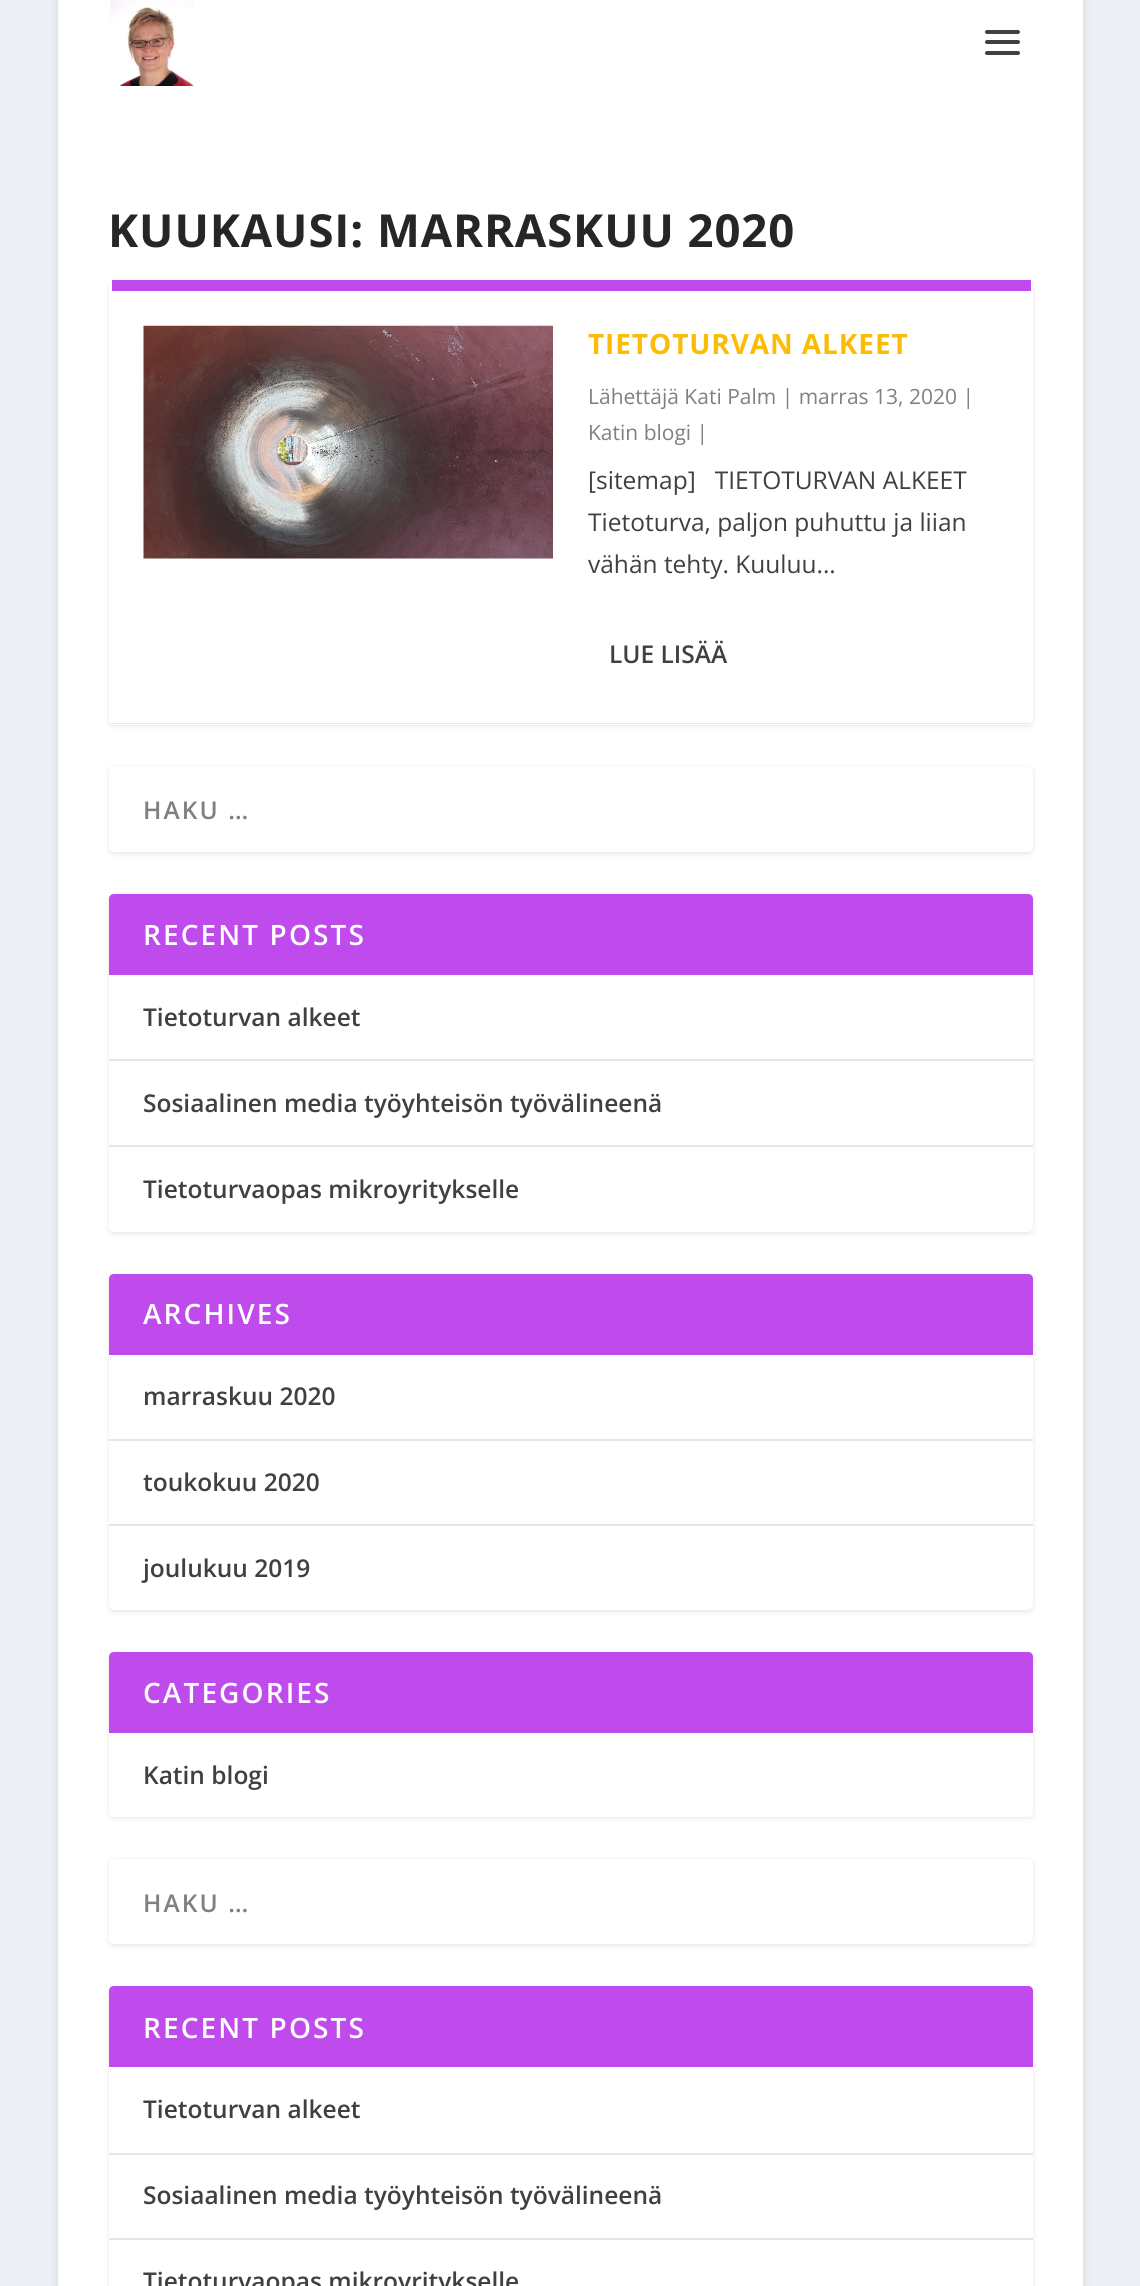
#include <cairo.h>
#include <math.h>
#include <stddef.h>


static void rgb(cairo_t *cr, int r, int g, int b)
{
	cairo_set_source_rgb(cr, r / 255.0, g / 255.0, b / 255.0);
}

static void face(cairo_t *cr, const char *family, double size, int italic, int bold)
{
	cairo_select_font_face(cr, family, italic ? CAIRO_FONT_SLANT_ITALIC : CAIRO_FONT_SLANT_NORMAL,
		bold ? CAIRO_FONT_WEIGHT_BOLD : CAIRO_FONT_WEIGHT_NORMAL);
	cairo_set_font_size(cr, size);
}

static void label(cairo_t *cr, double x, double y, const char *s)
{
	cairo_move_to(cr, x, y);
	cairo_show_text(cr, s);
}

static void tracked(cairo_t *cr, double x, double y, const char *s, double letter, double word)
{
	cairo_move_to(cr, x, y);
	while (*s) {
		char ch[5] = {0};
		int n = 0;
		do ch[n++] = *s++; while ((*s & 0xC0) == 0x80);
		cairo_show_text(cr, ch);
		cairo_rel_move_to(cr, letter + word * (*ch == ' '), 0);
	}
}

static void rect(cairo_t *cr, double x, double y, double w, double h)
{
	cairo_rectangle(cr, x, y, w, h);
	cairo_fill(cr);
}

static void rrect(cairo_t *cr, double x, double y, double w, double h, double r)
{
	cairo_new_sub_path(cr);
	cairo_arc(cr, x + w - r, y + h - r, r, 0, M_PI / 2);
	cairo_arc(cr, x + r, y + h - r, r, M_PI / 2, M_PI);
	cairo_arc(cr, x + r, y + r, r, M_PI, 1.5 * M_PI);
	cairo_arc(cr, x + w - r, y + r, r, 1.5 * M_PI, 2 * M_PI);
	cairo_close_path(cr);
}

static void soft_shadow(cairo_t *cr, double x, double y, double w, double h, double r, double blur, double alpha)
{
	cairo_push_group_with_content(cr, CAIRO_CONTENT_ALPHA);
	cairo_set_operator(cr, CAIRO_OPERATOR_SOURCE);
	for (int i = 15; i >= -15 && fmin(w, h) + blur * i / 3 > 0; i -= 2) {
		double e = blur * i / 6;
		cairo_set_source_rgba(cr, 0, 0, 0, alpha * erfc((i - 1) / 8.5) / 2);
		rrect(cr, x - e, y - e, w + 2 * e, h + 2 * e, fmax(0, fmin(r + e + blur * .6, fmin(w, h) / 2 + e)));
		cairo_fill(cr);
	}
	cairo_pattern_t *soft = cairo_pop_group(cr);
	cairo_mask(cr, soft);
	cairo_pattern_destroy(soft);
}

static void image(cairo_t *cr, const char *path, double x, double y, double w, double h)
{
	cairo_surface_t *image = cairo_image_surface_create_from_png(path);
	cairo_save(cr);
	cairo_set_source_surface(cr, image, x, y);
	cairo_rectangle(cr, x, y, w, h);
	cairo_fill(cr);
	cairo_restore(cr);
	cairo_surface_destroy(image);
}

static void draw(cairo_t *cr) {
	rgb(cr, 236, 240, 245);
	cairo_paint(cr);
	rgb(cr, 0, 0, 0);
	soft_shadow(cr, 58, -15, 1025, 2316, 0, 5, 0.1);
	rgb(cr, 255, 255, 255);
	rect(cr, 58, 0, 1025, 2286);
	image(cr, "image0.png", 110, 0, 84, 86);
	rgb(cr, 64, 64, 64);
	rrect(cr, 985, 30, 35, 4, 2);
	cairo_fill(cr);
	rrect(cr, 985, 40, 35, 4, 2);
	cairo_fill(cr);
	rrect(cr, 985, 51, 35, 4, 2);
	cairo_fill(cr);
	face(cr, "Open Sans", 45.5, 0, 1);
	rgb(cr, 38, 38, 38);
	tracked(cr, 108, 247, "KUUKAUSI: MARRASKUU 2020", 0.9, 0);
	rgb(cr, 0, 0, 0);
	soft_shadow(cr, 109, 282, 924, 444, 5, 2.5, 0.1);
	rgb(cr, 255, 255, 255);
	rrect(cr, 109, 280, 924, 445, 5);
	cairo_fill(cr);
	rgb(cr, 191, 75, 237);
	rect(cr, 112, 280, 919, 11);
	rgb(cr, 230, 230, 230);
	cairo_new_path(cr);
	cairo_move_to(cr, 1031, 723);
	cairo_curve_to(cr, 1030, 724, 1029, 724, 1027, 724);
	cairo_line_to(cr, 114, 724);
	cairo_curve_to(cr, 112, 724, 111, 724, 110, 723);
	cairo_close_path(cr);
	cairo_fill(cr);
	image(cr, "image1.png", 143, 325, 410, 234);
	face(cr, "Open Sans", 28, 0, 1);
	rgb(cr, 251, 188, 6);
	tracked(cr, 588, 354, "TIETOTURVAN ALKEET", 0.9, 0);
	face(cr, "Open Sans", 21, 0, 0);
	rgb(cr, 128, 128, 128);
	label(cr, 588, 404, "Lähettäjä Kati Palm | marras 13, 2020 |");
	label(cr, 588, 440, "Katin blogi |");
	face(cr, "Open Sans", 24.5, 0, 0);
	rgb(cr, 64, 64, 64);
	label(cr, 588, 489, "[sitemap]   TIETOTURVAN ALKEET");
	label(cr, 588, 531, "Tietoturva, paljon puhuttu ja liian");
	label(cr, 588, 573, "vähän tehty. Kuuluu...");
	face(cr, "Open Sans SemiBold", 24.5, 0, 0);
	label(cr, 609, 663, "LUE LISÄÄ");
	rgb(cr, 0, 0, 0);
	soft_shadow(cr, 109, 768, 924, 86, 5, 2.5, 0.1);
	rgb(cr, 255, 255, 255);
	rrect(cr, 109, 767, 924, 85, 5);
	cairo_fill(cr);
	rgb(cr, 128, 128, 128);
	tracked(cr, 143, 819, "HAKU …", 2.1, 0);
	rgb(cr, 0, 0, 0);
	soft_shadow(cr, 109, 896, 924, 338, 5, 2.5, 0.1);
	rgb(cr, 255, 255, 255);
	rrect(cr, 109, 894, 924, 338, 5);
	cairo_fill(cr);
	rgb(cr, 191, 75, 237);
	cairo_new_path(cr);
	cairo_move_to(cr, 114, 894);
	cairo_line_to(cr, 1028, 894);
	cairo_curve_to(cr, 1031, 894, 1033, 896, 1033, 899);
	cairo_line_to(cr, 1033, 975);
	cairo_line_to(cr, 109, 975);
	cairo_line_to(cr, 109, 899);
	cairo_curve_to(cr, 109, 896, 111, 894, 114, 894);
	cairo_close_path(cr);
	cairo_fill(cr);
	face(cr, "Open Sans SemiBold", 28, 0, 0);
	rgb(cr, 255, 255, 255);
	tracked(cr, 143, 945, "RECENT POSTS", 2.1, 0);
	rgb(cr, 230, 230, 230);
	rect(cr, 109, 1059, 924, 2);
	face(cr, "Open Sans SemiBold", 24.5, 0, 0);
	rgb(cr, 64, 64, 64);
	label(cr, 143, 1026, "Tietoturvan alkeet");
	rgb(cr, 230, 230, 230);
	rect(cr, 109, 1145, 924, 2);
	rgb(cr, 64, 64, 64);
	label(cr, 143, 1112, "Sosiaalinen media työyhteisön työvälineenä");
	label(cr, 143, 1198, "Tietoturvaopas mikroyritykselle");
	rgb(cr, 0, 0, 0);
	soft_shadow(cr, 109, 1276, 924, 336, 5, 2.5, 0.1);
	rgb(cr, 255, 255, 255);
	rrect(cr, 109, 1274, 924, 336, 5);
	cairo_fill(cr);
	rgb(cr, 191, 75, 237);
	cairo_new_path(cr);
	cairo_move_to(cr, 114, 1274);
	cairo_line_to(cr, 1028, 1274);
	cairo_curve_to(cr, 1031, 1274, 1033, 1276, 1033, 1279);
	cairo_line_to(cr, 1033, 1355);
	cairo_line_to(cr, 109, 1355);
	cairo_line_to(cr, 109, 1279);
	cairo_curve_to(cr, 109, 1276, 111, 1274, 114, 1274);
	cairo_close_path(cr);
	cairo_fill(cr);
	face(cr, "Open Sans SemiBold", 28, 0, 0);
	rgb(cr, 255, 255, 255);
	tracked(cr, 143, 1324, "ARCHIVES", 2.1, 0);
	rgb(cr, 230, 230, 230);
	rect(cr, 109, 1439, 924, 2);
	face(cr, "Open Sans SemiBold", 24.5, 0, 0);
	rgb(cr, 64, 64, 64);
	label(cr, 143, 1405, "marraskuu 2020");
	rgb(cr, 230, 230, 230);
	rect(cr, 109, 1524, 924, 2);
	rgb(cr, 64, 64, 64);
	label(cr, 143, 1491, "toukokuu 2020");
	label(cr, 143, 1577, "joulukuu 2019");
	rgb(cr, 0, 0, 0);
	soft_shadow(cr, 109, 1654, 924, 164, 5, 2.5, 0.1);
	rgb(cr, 255, 255, 255);
	rrect(cr, 109, 1652, 924, 165, 5);
	cairo_fill(cr);
	rgb(cr, 191, 75, 237);
	cairo_new_path(cr);
	cairo_move_to(cr, 114, 1652);
	cairo_line_to(cr, 1028, 1652);
	cairo_curve_to(cr, 1031, 1652, 1033, 1654, 1033, 1657);
	cairo_line_to(cr, 1033, 1733);
	cairo_line_to(cr, 109, 1733);
	cairo_line_to(cr, 109, 1657);
	cairo_curve_to(cr, 109, 1654, 111, 1652, 114, 1652);
	cairo_close_path(cr);
	cairo_fill(cr);
	face(cr, "Open Sans SemiBold", 28, 0, 0);
	rgb(cr, 255, 255, 255);
	tracked(cr, 143, 1703, "CATEGORIES", 2.1, 0);
	face(cr, "Open Sans SemiBold", 24.5, 0, 0);
	rgb(cr, 64, 64, 64);
	label(cr, 143, 1784, "Katin blogi");
	rgb(cr, 0, 0, 0);
	soft_shadow(cr, 109, 1860, 924, 86, 5, 2.5, 0.1);
	rgb(cr, 255, 255, 255);
	rrect(cr, 109, 1859, 924, 85, 5);
	cairo_fill(cr);
	rgb(cr, 128, 128, 128);
	tracked(cr, 143, 1912, "HAKU …", 2.1, 0);
	rgb(cr, 0, 0, 0);
	soft_shadow(cr, 109, 1988, 924, 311, 5, 2.5, 0.1);
	rgb(cr, 255, 255, 255);
	rrect(cr, 109, 1986, 924, 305, 5);
	cairo_fill(cr);
	rgb(cr, 191, 75, 237);
	cairo_new_path(cr);
	cairo_move_to(cr, 114, 1986);
	cairo_line_to(cr, 1028, 1986);
	cairo_curve_to(cr, 1031, 1986, 1033, 1988, 1033, 1991);
	cairo_line_to(cr, 1033, 2067);
	cairo_line_to(cr, 109, 2067);
	cairo_line_to(cr, 109, 1991);
	cairo_curve_to(cr, 109, 1988, 111, 1986, 114, 1986);
	cairo_close_path(cr);
	cairo_fill(cr);
	face(cr, "Open Sans SemiBold", 28, 0, 0);
	rgb(cr, 255, 255, 255);
	tracked(cr, 143, 2038, "RECENT POSTS", 2.1, 0);
	rgb(cr, 230, 230, 230);
	rect(cr, 109, 2153, 924, 2);
	face(cr, "Open Sans SemiBold", 24.5, 0, 0);
	rgb(cr, 64, 64, 64);
	label(cr, 143, 2118, "Tietoturvan alkeet");
	rgb(cr, 230, 230, 230);
	rect(cr, 109, 2238, 924, 2);
	rgb(cr, 64, 64, 64);
	label(cr, 143, 2204, "Sosiaalinen media työyhteisön työvälineenä");
	label(cr, 143, 2290, "Tietoturvaopas mikroyritykselle");
}

int main(void) {
	cairo_surface_t *surface = cairo_image_surface_create(CAIRO_FORMAT_RGB24, 1140, 2286);
	cairo_t *cr = cairo_create(surface);
	cairo_font_options_t *options = cairo_font_options_create();
	cairo_font_options_set_hint_metrics(options, CAIRO_HINT_METRICS_OFF);
	cairo_font_options_set_hint_style(options, CAIRO_HINT_STYLE_NONE);
	cairo_set_font_options(cr, options);
	cairo_set_miter_limit(cr, 4);
	draw(cr);
	cairo_surface_write_to_png(surface, "render.png");
	cairo_font_options_destroy(options);
	cairo_destroy(cr);
	cairo_surface_destroy(surface);
	return 0;
}
